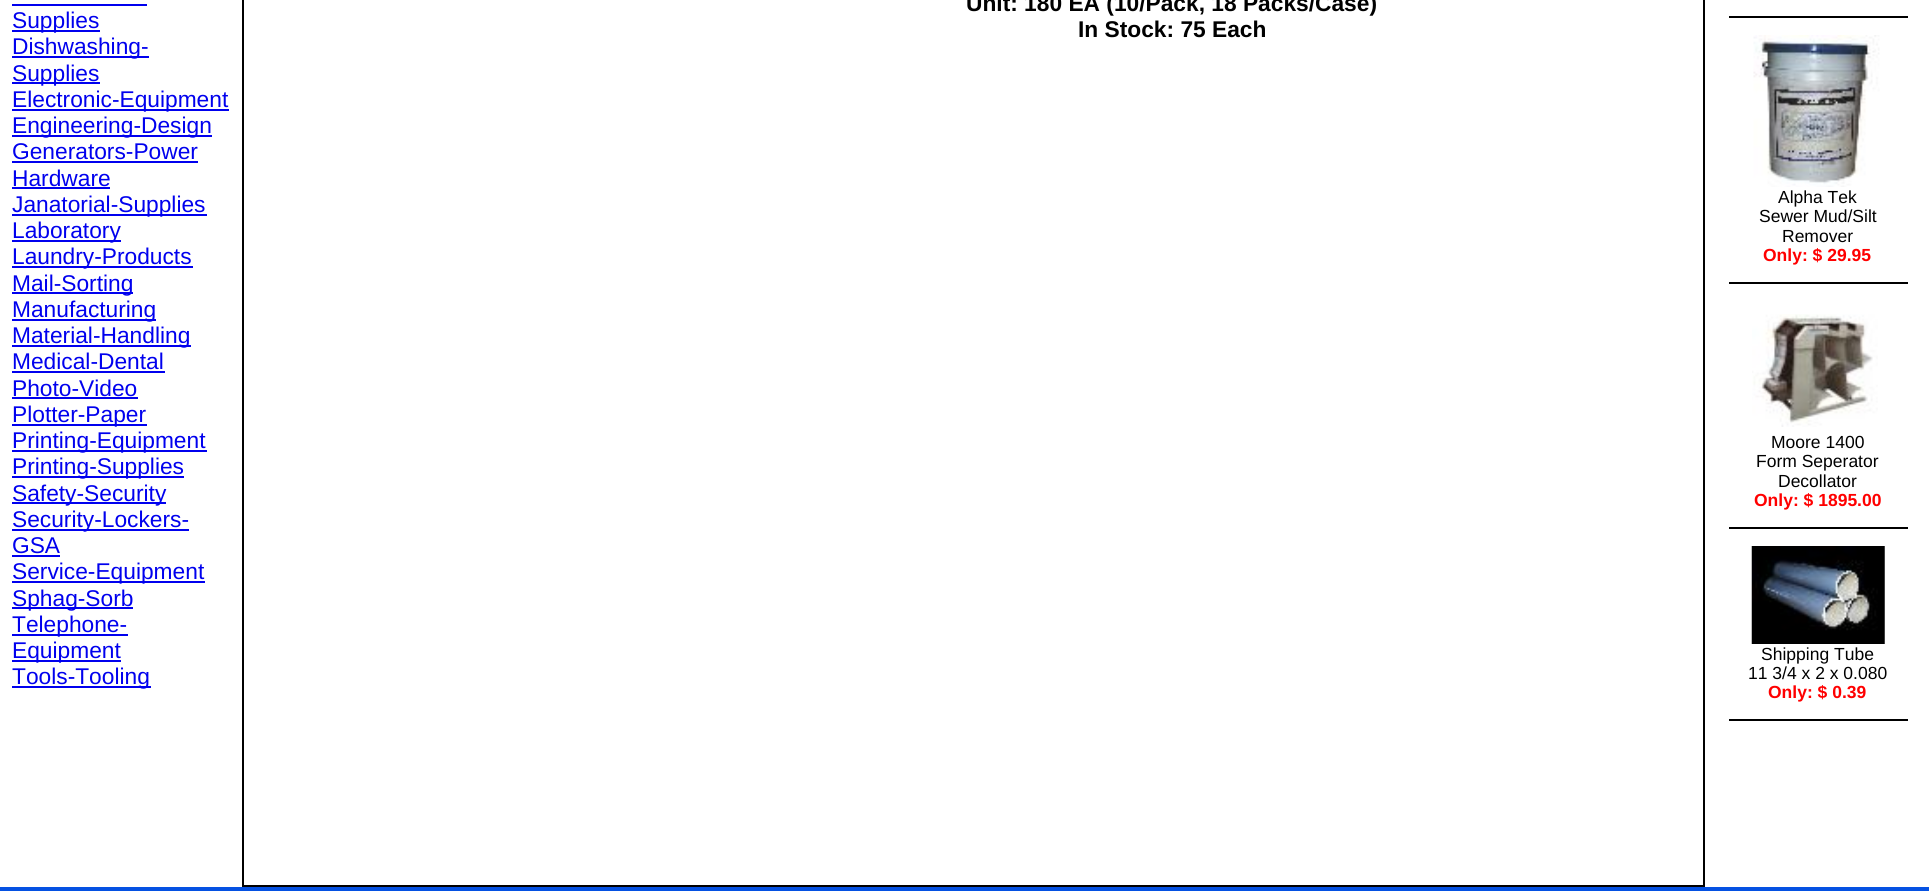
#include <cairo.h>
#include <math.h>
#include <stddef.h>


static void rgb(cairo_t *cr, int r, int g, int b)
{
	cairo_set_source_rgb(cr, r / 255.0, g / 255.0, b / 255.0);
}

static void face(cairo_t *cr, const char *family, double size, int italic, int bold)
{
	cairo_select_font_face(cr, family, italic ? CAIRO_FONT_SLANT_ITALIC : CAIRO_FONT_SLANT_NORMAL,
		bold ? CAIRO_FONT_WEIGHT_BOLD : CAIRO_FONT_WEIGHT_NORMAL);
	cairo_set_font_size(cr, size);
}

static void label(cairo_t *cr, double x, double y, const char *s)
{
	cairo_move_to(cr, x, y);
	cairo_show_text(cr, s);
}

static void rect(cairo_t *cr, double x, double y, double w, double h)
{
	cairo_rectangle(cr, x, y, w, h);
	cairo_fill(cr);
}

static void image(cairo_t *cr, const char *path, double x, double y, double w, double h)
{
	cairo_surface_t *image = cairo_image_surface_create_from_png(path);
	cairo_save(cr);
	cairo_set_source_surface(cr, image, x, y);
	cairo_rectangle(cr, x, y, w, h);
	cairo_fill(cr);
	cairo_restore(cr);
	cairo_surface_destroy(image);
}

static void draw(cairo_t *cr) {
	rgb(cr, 255, 255, 255);
	cairo_paint(cr);
	rgb(cr, 0, 0, 238);
	rect(cr, 12, 30, 88, 2);
	face(cr, "Liberation Sans", 22.75, 0, 0);
	label(cr, 12, 28, "Supplies");
	rect(cr, 12, 4, 135, 2);
	rect(cr, 12, 56, 137, 2);
	label(cr, 12, 54, "Dishwashing-");
	rect(cr, 12, 82, 88, 2);
	label(cr, 12, 81, "Supplies");
	rect(cr, 12, 109, 217, 2);
	label(cr, 12, 107, "Electronic-Equipment");
	rect(cr, 12, 135, 200, 2);
	label(cr, 12, 133, "Engineering-Design");
	label(cr, 12, 159, "Generators-Power");
	rect(cr, 12, 161, 186, 2);
	label(cr, 12, 186, "Hardware");
	rect(cr, 12, 187, 98, 2);
	rect(cr, 12, 214, 195, 2);
	label(cr, 12, 212, "Janatorial-Supplies");
	rect(cr, 12, 240, 109, 2);
	label(cr, 12, 238, "Laboratory");
	rect(cr, 12, 266, 181, 2);
	label(cr, 12, 264, "Laundry-Products");
	rect(cr, 12, 292, 121, 2);
	label(cr, 12, 291, "Mail-Sorting");
	rect(cr, 12, 319, 144, 2);
	label(cr, 12, 317, "Manufacturing");
	rect(cr, 12, 345, 179, 2);
	label(cr, 12, 343, "Material-Handling");
	label(cr, 12, 369, "Medical-Dental");
	rect(cr, 12, 371, 153, 2);
	label(cr, 12, 396, "Photo-Video");
	rect(cr, 12, 397, 126, 2);
	rect(cr, 12, 424, 135, 2);
	label(cr, 12, 422, "Plotter-Paper");
	rect(cr, 12, 450, 195, 2);
	label(cr, 12, 448, "Printing-Equipment");
	rect(cr, 12, 476, 172, 2);
	label(cr, 12, 474, "Printing-Supplies");
	rect(cr, 12, 502, 154, 2);
	label(cr, 12, 501, "Safety-Security");
	rect(cr, 12, 529, 177, 2);
	label(cr, 12, 527, "Security-Lockers-");
	label(cr, 12, 553, "GSA");
	rect(cr, 12, 555, 48, 2);
	rect(cr, 12, 581, 193, 2);
	label(cr, 12, 579, "Service-Equipment");
	rect(cr, 12, 607, 121, 2);
	label(cr, 12, 606, "Sphag-Sorb");
	rect(cr, 12, 634, 116, 2);
	label(cr, 12, 632, "Telephone-");
	rect(cr, 12, 660, 109, 2);
	label(cr, 12, 658, "Equipment");
	rect(cr, 12, 686, 139, 2);
	label(cr, 12, 684, "Tools-Tooling");
	cairo_rectangle(cr, 243, -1, 1461, 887);
	rgb(cr, 0, 0, 0);
	cairo_stroke(cr);
	face(cr, "Liberation Sans", 22.75, 0, 1);
	label(cr, 966, 11, "Unit: 180 EA (10/Pack, 18 Packs/Case)");
	label(cr, 1078, 37, "In Stock: 75 Each");
	rect(cr, 1729, 16, 179, 2);
	image(cr, "image0.png", 1753, 35, 127, 152);
	face(cr, "Liberation Sans", 17.5, 0, 0);
	label(cr, 1778, 203, "Alpha Tek");
	label(cr, 1759, 222, "Sewer Mud/Silt");
	label(cr, 1782, 242, "Remover");
	face(cr, "Liberation Sans", 17.5, 0, 1);
	rgb(cr, 255, 0, 0);
	label(cr, 1763, 261, "Only: $ 29.95");
	rgb(cr, 0, 0, 0);
	rect(cr, 1729, 282, 179, 2);
	image(cr, "image1.png", 1752, 314, 126, 113);
	face(cr, "Liberation Sans", 17.5, 0, 0);
	label(cr, 1771, 448, "Moore 1400");
	label(cr, 1756, 467, "Form Seperator");
	label(cr, 1778, 487, "Decollator");
	face(cr, "Liberation Sans", 17.5, 0, 1);
	rgb(cr, 255, 0, 0);
	label(cr, 1754, 506, "Only: $ 1895.00");
	rgb(cr, 0, 0, 0);
	rect(cr, 1729, 527, 179, 2);
	image(cr, "image2.png", 1751, 546, 134, 98);
	face(cr, "Liberation Sans", 17.5, 0, 0);
	label(cr, 1761, 660, "Shipping Tube");
	label(cr, 1748, 679, "11 3/4 x 2 x 0.080");
	face(cr, "Liberation Sans", 17.5, 0, 1);
	rgb(cr, 255, 0, 0);
	label(cr, 1768, 698, "Only: $ 0.39");
	rgb(cr, 0, 0, 0);
	rect(cr, 1729, 719, 179, 2);
	rgb(cr, 5, 81, 226);
	rect(cr, 0, 887, 1929, 4);
}

int main(void) {
	cairo_surface_t *surface = cairo_image_surface_create(CAIRO_FORMAT_RGB24, 1929, 891);
	cairo_t *cr = cairo_create(surface);
	cairo_font_options_t *options = cairo_font_options_create();
	cairo_font_options_set_hint_metrics(options, CAIRO_HINT_METRICS_OFF);
	cairo_font_options_set_hint_style(options, CAIRO_HINT_STYLE_NONE);
	cairo_set_font_options(cr, options);
	cairo_set_miter_limit(cr, 4);
	draw(cr);
	cairo_surface_write_to_png(surface, "render.png");
	cairo_font_options_destroy(options);
	cairo_destroy(cr);
	cairo_surface_destroy(surface);
	return 0;
}
